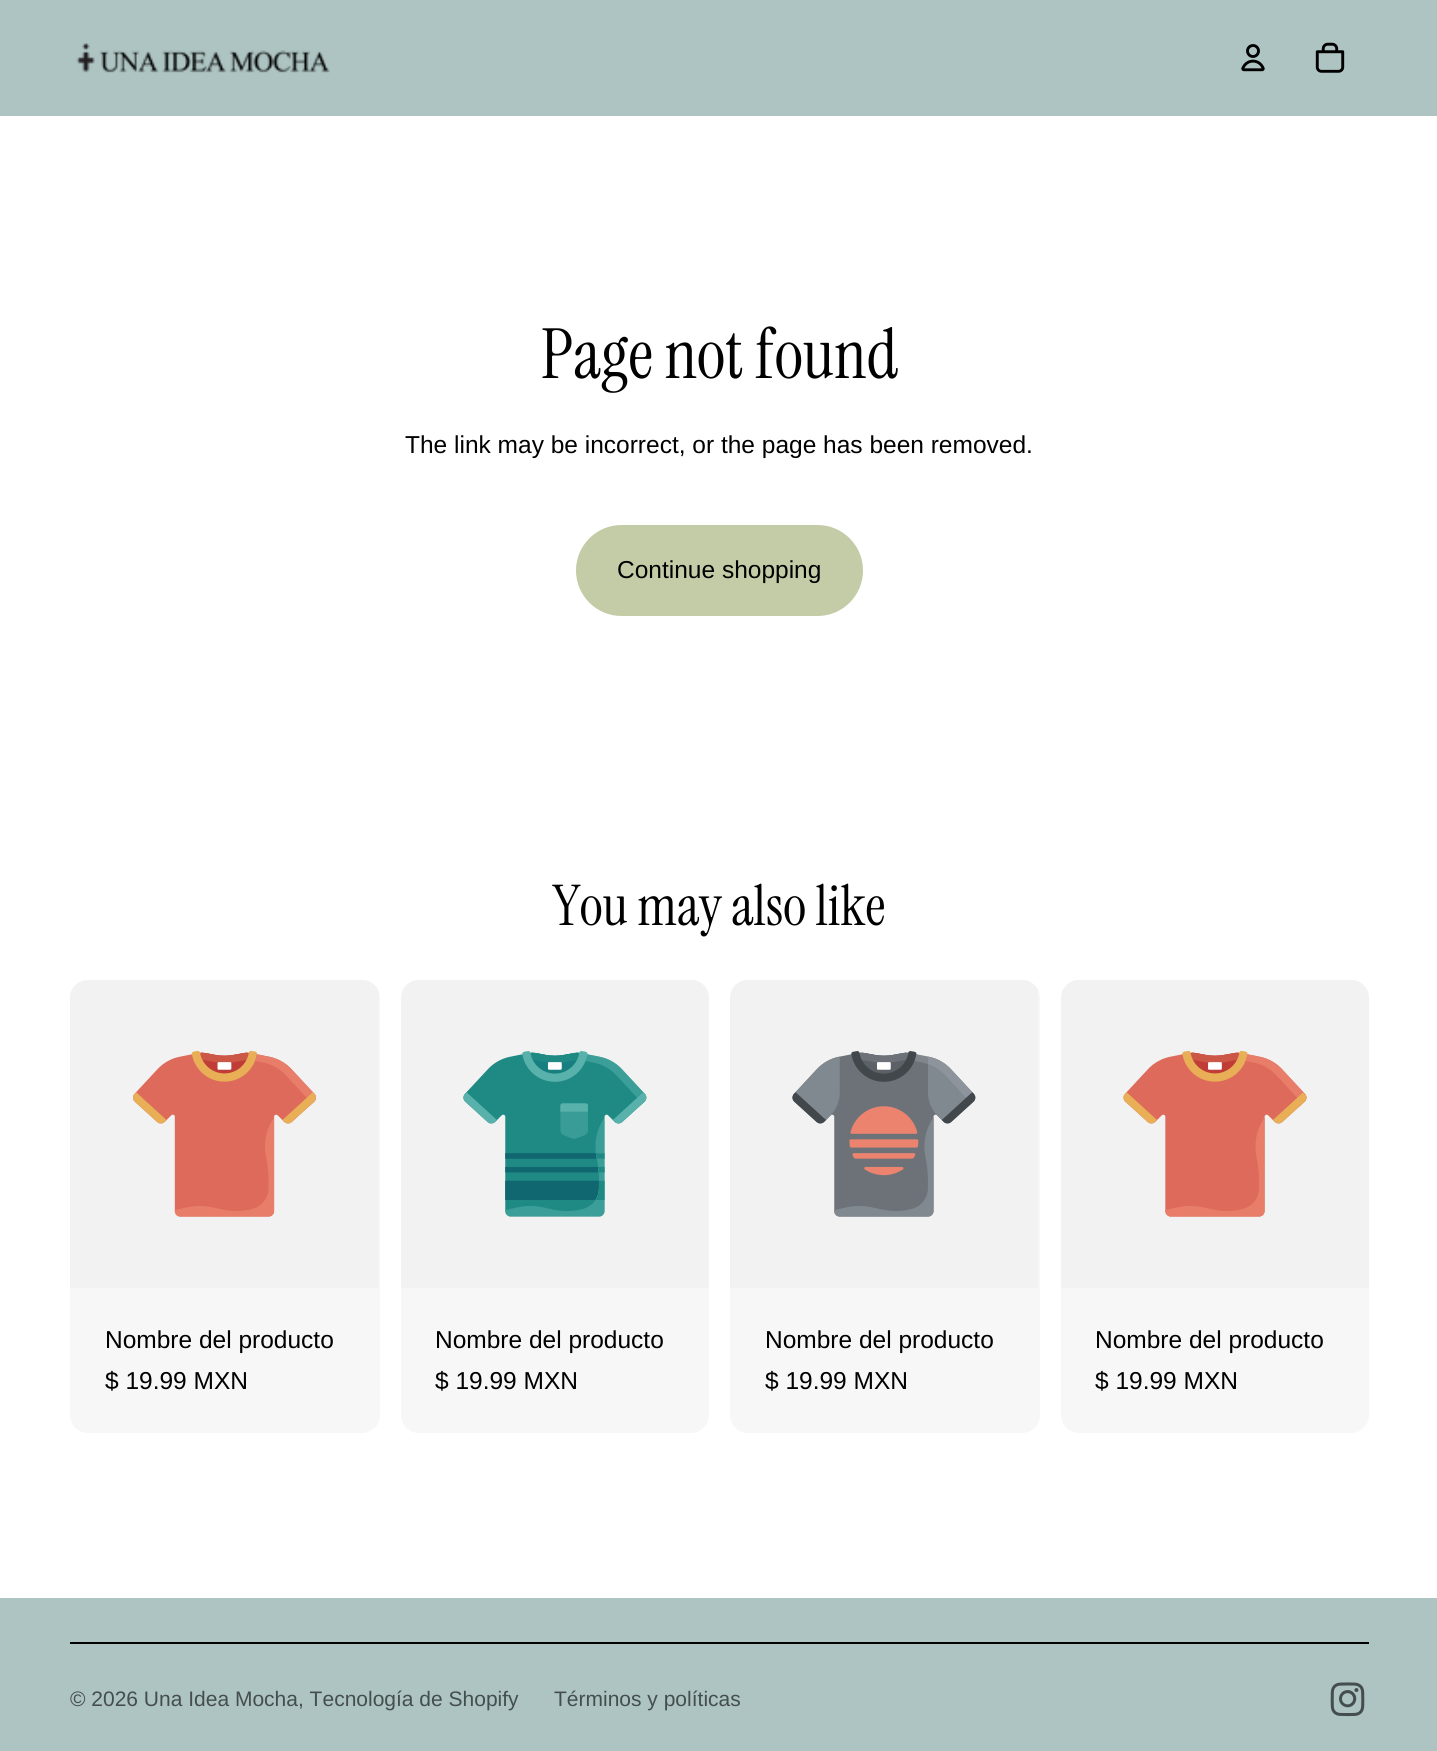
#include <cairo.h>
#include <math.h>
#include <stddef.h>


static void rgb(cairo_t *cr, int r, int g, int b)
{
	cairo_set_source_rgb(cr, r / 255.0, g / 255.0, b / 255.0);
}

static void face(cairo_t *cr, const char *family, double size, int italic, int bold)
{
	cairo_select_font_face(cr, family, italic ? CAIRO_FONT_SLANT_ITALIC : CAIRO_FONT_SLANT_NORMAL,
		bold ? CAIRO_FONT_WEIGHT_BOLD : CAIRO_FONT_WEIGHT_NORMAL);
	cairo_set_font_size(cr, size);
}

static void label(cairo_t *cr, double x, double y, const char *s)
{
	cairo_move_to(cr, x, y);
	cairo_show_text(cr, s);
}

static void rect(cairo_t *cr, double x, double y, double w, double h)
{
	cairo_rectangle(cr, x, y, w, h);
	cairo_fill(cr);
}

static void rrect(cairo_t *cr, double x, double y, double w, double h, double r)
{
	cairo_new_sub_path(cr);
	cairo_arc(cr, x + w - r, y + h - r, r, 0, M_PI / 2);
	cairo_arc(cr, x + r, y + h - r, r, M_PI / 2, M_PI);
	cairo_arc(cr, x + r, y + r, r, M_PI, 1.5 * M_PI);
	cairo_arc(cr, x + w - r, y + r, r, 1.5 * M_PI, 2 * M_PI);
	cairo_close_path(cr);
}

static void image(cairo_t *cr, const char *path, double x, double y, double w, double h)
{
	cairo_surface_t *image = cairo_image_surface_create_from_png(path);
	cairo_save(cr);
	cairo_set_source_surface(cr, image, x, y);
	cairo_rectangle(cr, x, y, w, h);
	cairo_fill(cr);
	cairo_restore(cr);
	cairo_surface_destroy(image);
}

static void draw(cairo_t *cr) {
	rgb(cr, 255, 255, 255);
	cairo_paint(cr);
	rgb(cr, 173, 196, 194);
	rect(cr, 0, 0, 1437, 116);
	image(cr, "image0.png", 76, 43, 254, 30);
	image(cr, "image1.png", 1241, 44, 24, 28);
	image(cr, "image2.png", 1315, 42, 30, 31);
	face(cr, "Instrument Serif", 69, 0, 0);
	rgb(cr, 0, 0, 0);
	label(cr, 541, 378, "Page not found");
	face(cr, "Liberation Sans", 24.5, 0, 0);
	label(cr, 405, 453, "The link may be incorrect, or the page has been removed.");
	rgb(cr, 195, 204, 166);
	rrect(cr, 576, 525, 287, 91, 45.5);
	cairo_fill(cr);
	rgb(cr, 0, 0, 0);
	label(cr, 617, 578, "Continue shopping");
	face(cr, "Instrument Serif", 56, 0, 0);
	label(cr, 553, 925, "You may also like");
	rgb(cr, 247, 247, 247);
	rrect(cr, 70, 980, 310, 453, 18);
	cairo_fill(cr);
	image(cr, "image3.png", 70, 980, 309, 308);
	face(cr, "Liberation Sans", 24.5, 0, 0);
	rgb(cr, 0, 0, 0);
	label(cr, 105, 1348, "Nombre del producto");
	label(cr, 105, 1389, "$ 19.99 MXN");
	rgb(cr, 247, 247, 247);
	rrect(cr, 401, 980, 308, 453, 18);
	cairo_fill(cr);
	image(cr, "image4.png", 401, 980, 308, 308);
	rgb(cr, 0, 0, 0);
	label(cr, 435, 1348, "Nombre del producto");
	label(cr, 435, 1389, "$ 19.99 MXN");
	rgb(cr, 247, 247, 247);
	rrect(cr, 730, 980, 310, 453, 18);
	cairo_fill(cr);
	image(cr, "image5.png", 730, 980, 308, 308);
	rgb(cr, 0, 0, 0);
	label(cr, 765, 1348, "Nombre del producto");
	label(cr, 765, 1389, "$ 19.99 MXN");
	rgb(cr, 247, 247, 247);
	rrect(cr, 1061, 980, 308, 453, 18);
	cairo_fill(cr);
	image(cr, "image6.png", 1061, 980, 308, 308);
	rgb(cr, 0, 0, 0);
	label(cr, 1095, 1348, "Nombre del producto");
	label(cr, 1095, 1389, "$ 19.99 MXN");
	rgb(cr, 173, 196, 194);
	rect(cr, 0, 1598, 1437, 153);
	rgb(cr, 0, 0, 0);
	rect(cr, 70, 1642, 1299, 2);
	face(cr, "Liberation Sans", 21, 0, 0);
	rgb(cr, 69, 78, 78);
	label(cr, 70, 1706, "© 2026 Una Idea Mocha, Tecnología de Shopify");
	label(cr, 554, 1706, "Términos y políticas");
	image(cr, "image7.png", 1330, 1682, 35, 35);
}

int main(void) {
	cairo_surface_t *surface = cairo_image_surface_create(CAIRO_FORMAT_RGB24, 1437, 1751);
	cairo_t *cr = cairo_create(surface);
	cairo_font_options_t *options = cairo_font_options_create();
	cairo_font_options_set_hint_metrics(options, CAIRO_HINT_METRICS_OFF);
	cairo_font_options_set_hint_style(options, CAIRO_HINT_STYLE_NONE);
	cairo_set_font_options(cr, options);
	cairo_set_miter_limit(cr, 4);
	draw(cr);
	cairo_surface_write_to_png(surface, "render.png");
	cairo_font_options_destroy(options);
	cairo_destroy(cr);
	cairo_surface_destroy(surface);
	return 0;
}
